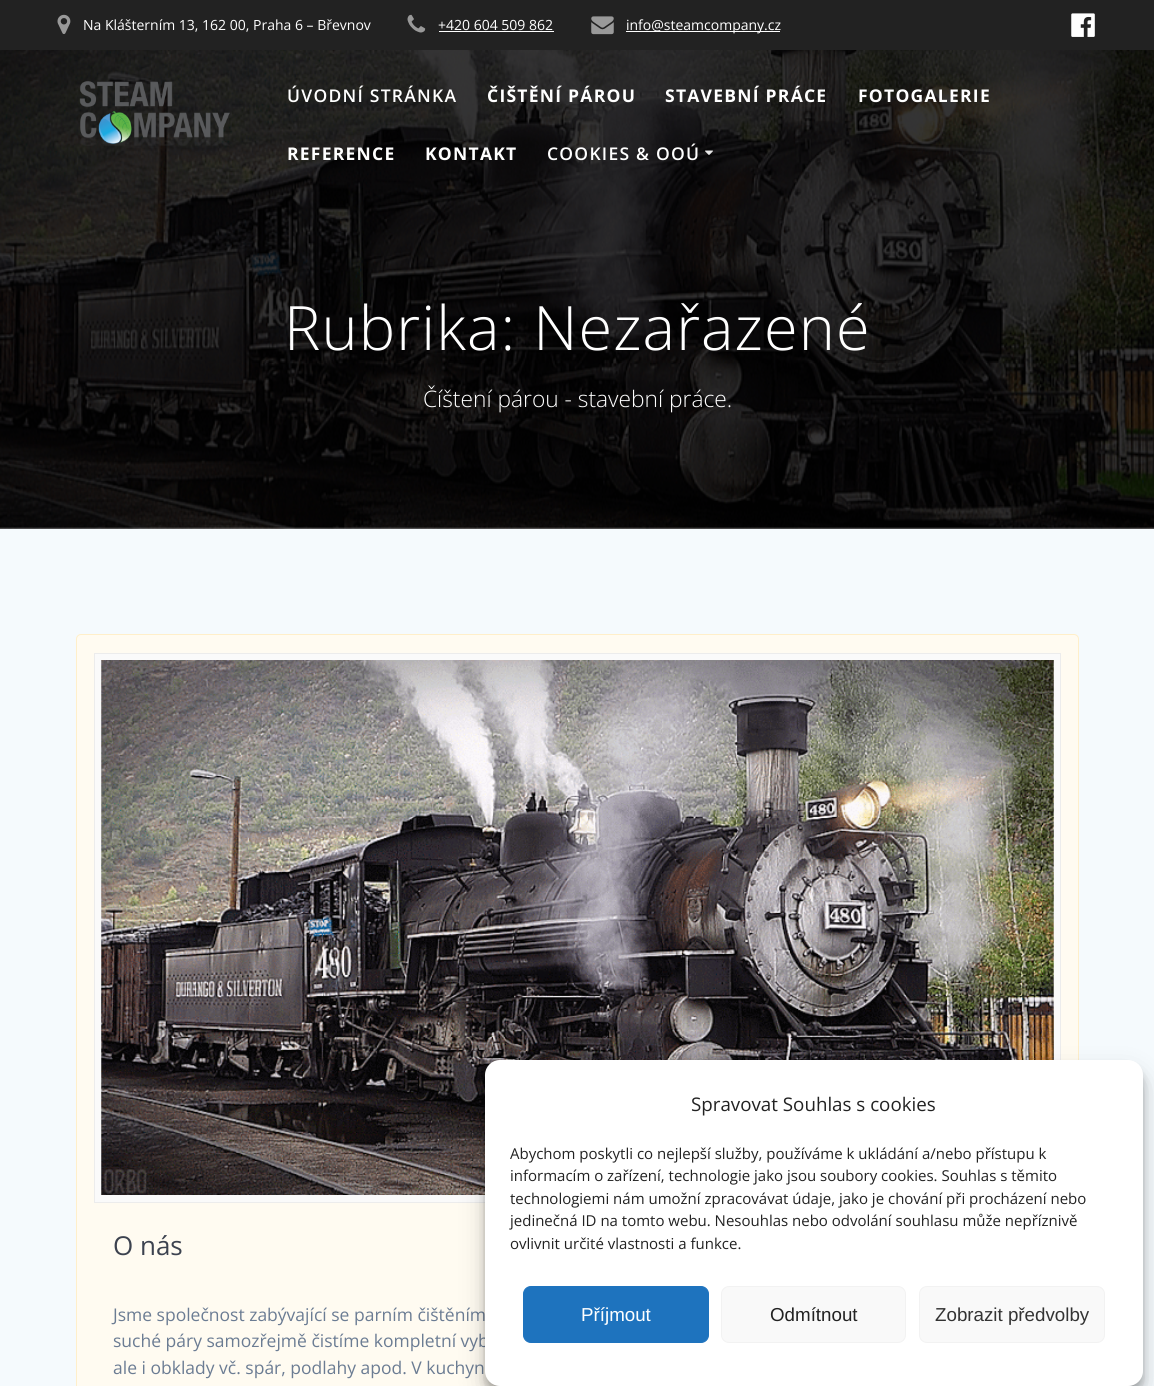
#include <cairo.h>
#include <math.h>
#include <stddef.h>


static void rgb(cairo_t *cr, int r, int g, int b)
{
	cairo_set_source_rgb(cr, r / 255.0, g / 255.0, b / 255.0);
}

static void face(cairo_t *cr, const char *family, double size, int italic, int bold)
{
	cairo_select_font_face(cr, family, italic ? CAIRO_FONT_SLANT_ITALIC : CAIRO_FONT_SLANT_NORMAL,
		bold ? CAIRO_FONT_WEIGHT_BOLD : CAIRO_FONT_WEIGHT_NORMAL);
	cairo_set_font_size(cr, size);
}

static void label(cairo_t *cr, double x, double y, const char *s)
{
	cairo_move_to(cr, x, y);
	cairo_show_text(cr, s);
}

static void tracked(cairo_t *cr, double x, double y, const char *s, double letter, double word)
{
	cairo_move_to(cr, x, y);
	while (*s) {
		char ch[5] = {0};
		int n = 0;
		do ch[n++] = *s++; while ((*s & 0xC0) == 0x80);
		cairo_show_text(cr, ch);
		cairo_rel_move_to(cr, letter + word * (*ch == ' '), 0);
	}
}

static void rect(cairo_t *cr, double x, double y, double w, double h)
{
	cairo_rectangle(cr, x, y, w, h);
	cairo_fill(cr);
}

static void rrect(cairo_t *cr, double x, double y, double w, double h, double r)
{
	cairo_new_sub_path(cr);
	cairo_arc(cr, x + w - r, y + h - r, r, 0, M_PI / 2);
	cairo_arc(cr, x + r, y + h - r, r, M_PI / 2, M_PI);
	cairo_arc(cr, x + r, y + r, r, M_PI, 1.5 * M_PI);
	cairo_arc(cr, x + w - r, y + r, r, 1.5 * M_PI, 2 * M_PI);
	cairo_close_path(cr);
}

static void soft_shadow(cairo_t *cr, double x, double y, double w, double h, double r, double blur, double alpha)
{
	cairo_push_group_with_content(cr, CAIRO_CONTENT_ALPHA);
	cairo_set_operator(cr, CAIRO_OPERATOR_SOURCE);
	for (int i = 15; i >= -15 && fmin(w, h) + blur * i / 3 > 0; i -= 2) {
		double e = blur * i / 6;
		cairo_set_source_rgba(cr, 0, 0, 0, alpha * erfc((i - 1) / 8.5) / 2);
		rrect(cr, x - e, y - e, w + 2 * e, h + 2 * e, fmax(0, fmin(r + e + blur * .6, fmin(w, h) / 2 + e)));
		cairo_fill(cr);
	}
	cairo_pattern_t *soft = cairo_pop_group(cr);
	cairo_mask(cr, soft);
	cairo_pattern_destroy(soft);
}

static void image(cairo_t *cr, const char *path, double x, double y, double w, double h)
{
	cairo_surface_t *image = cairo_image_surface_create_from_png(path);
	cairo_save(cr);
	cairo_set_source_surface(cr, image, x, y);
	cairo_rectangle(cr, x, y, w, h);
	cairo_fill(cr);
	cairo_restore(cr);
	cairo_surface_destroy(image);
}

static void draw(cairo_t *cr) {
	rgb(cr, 255, 255, 255);
	cairo_paint(cr);
	rgb(cr, 34, 34, 34);
	rect(cr, 0, 0, 1154, 50);
	image(cr, "image0.png", 57, 14, 14, 20);
	face(cr, "Open Sans", 14, 0, 0);
	rgb(cr, 255, 255, 255);
	label(cr, 83, 30, "Na Klášterním 13, 162 00, Praha 6 – Břevnov");
	image(cr, "image1.png", 407, 14, 19, 19);
	label(cr, 438, 30, "+420 604 509 862");
	rect(cr, 439, 31, 115, 1);
	image(cr, "image2.png", 591, 16, 23, 19);
	rect(cr, 626, 31, 154, 1);
	label(cr, 626, 30, "info@steamcompany.cz");
	image(cr, "image3.png", 1071, 13, 24, 24);
	image(cr, "image6.png", 0, 50, 1154, 479);
	image(cr, "image4.png", 79, 81, 151, 65);
	face(cr, "Open Sans SemiBold", 17.5, 0, 0);
	tracked(cr, 287, 102, "ÚVODNÍ STRÁNKA", 1.25, 0);
	face(cr, "Open Sans", 17.5, 0, 1);
	tracked(cr, 487, 102, "ČIŠTĚNÍ PÁROU", 1.25, 0);
	tracked(cr, 665, 102, "STAVEBNÍ PRÁCE", 1.25, 0);
	tracked(cr, 858, 102, "FOTOGALERIE", 1.25, 0);
	tracked(cr, 287, 160, "REFERENCE", 1.25, 0);
	tracked(cr, 425, 160, "KONTAKT", 1.25, 0);
	face(cr, "Open Sans SemiBold", 17.5, 0, 0);
	tracked(cr, 547, 160, "COOKIES & OOÚ", 1.25, 0);
	image(cr, "image5.png", 705, 150, 8, 5);
	face(cr, "Open Sans Light", 61.25, 0, 0);
	tracked(cr, 284, 350, "Rubrika: Nezařazené", 1.1, 0);
	face(cr, "Open Sans Light", 22.75, 0, 0);
	label(cr, 423, 407, "Číštení párou - stavební práce.");
	rgb(cr, 245, 250, 253);
	rect(cr, 0, 529, 1154, 857);
	rgb(cr, 255, 251, 241);
	rrect(cr, 76.5, 634.5, 1002, 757, 4.5);
	cairo_fill_preserve(cr);
	rgb(cr, 255, 239, 202);
	cairo_set_line_width(cr, 1);
	cairo_stroke(cr);
	rgb(cr, 250, 250, 250);
	cairo_rectangle(cr, 94.5, 653.5, 966, 549);
	cairo_fill_preserve(cr);
	rgb(cr, 236, 236, 236);
	cairo_stroke(cr);
	image(cr, "image7.png", 101, 660, 953, 535);
	face(cr, "Open Sans", 26, 0, 0);
	rgb(cr, 60, 66, 79);
	label(cr, 113, 1255, "O nás");
	face(cr, "Open Sans", 17.5, 0, 0);
	rgb(cr, 107, 124, 147);
	label(cr, 113, 1321, "Jsme společnost zabývající se parním čištěním");
	label(cr, 113, 1347, "suché páry samozřejmě čistíme kompletní vyb");
	label(cr, 113, 1374, "ale i obklady vč. spár, podlahy apod. V kuchyn");
	rgb(cr, 0, 0, 0);
	soft_shadow(cr, 485, 1068, 658, 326, 15, 4, 0.23);
	soft_shadow(cr, 485, 1073, 658, 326, 15, 12.5, 0.19);
	rgb(cr, 255, 255, 255);
	rrect(cr, 485, 1060, 658, 326, 15);
	cairo_fill(cr);
	face(cr, "Open Sans", 18.75, 0, 0);
	rgb(cr, 34, 34, 34);
	label(cr, 691, 1111, "Spravovat Souhlas s cookies");
	face(cr, "Open Sans", 15, 0, 0);
	label(cr, 510, 1159, "Abychom poskytli co nejlepší služby, používáme k ukládání a/nebo přístupu k");
	label(cr, 510, 1181, "informacím o zařízení, technologie jako jsou soubory cookies. Souhlas s těmito");
	label(cr, 510, 1204, "technologiemi nám umožní zpracovávat údaje, jako je chování při procházení nebo");
	label(cr, 510, 1226, "jedinečná ID na tomto webu. Nesouhlas nebo odvolání souhlasu může nepříznivě");
	label(cr, 510, 1249, "ovlivnit určité vlastnosti a funkce.");
	rgb(cr, 30, 115, 190);
	rrect(cr, 523.5, 1286.5, 185, 56, 7.5);
	cairo_fill_preserve(cr);
	cairo_stroke(cr);
	face(cr, "Liberation Sans", 18.75, 0, 0);
	rgb(cr, 255, 255, 255);
	label(cr, 581, 1321, "Příjmout");
	rgb(cr, 249, 249, 249);
	rrect(cr, 721.5, 1286.5, 184, 56, 7.5);
	cairo_fill_preserve(cr);
	rgb(cr, 242, 242, 242);
	cairo_stroke(cr);
	rgb(cr, 34, 34, 34);
	label(cr, 770, 1321, "Odmítnout");
	rgb(cr, 249, 249, 249);
	rrect(cr, 919.5, 1286.5, 185, 56, 7.5);
	cairo_fill_preserve(cr);
	rgb(cr, 242, 242, 242);
	cairo_stroke(cr);
	rgb(cr, 51, 51, 51);
	label(cr, 935, 1321, "Zobrazit předvolby");
}

int main(void) {
	cairo_surface_t *surface = cairo_image_surface_create(CAIRO_FORMAT_RGB24, 1154, 1386);
	cairo_t *cr = cairo_create(surface);
	cairo_font_options_t *options = cairo_font_options_create();
	cairo_font_options_set_hint_metrics(options, CAIRO_HINT_METRICS_OFF);
	cairo_font_options_set_hint_style(options, CAIRO_HINT_STYLE_NONE);
	cairo_set_font_options(cr, options);
	cairo_set_miter_limit(cr, 4);
	draw(cr);
	cairo_surface_write_to_png(surface, "render.png");
	cairo_font_options_destroy(options);
	cairo_destroy(cr);
	cairo_surface_destroy(surface);
	return 0;
}
